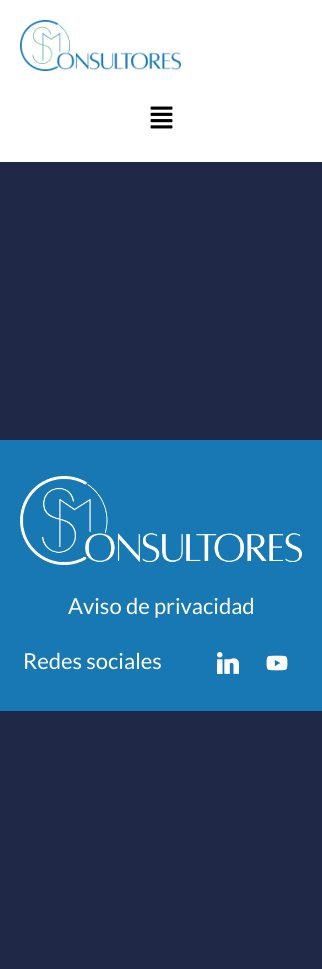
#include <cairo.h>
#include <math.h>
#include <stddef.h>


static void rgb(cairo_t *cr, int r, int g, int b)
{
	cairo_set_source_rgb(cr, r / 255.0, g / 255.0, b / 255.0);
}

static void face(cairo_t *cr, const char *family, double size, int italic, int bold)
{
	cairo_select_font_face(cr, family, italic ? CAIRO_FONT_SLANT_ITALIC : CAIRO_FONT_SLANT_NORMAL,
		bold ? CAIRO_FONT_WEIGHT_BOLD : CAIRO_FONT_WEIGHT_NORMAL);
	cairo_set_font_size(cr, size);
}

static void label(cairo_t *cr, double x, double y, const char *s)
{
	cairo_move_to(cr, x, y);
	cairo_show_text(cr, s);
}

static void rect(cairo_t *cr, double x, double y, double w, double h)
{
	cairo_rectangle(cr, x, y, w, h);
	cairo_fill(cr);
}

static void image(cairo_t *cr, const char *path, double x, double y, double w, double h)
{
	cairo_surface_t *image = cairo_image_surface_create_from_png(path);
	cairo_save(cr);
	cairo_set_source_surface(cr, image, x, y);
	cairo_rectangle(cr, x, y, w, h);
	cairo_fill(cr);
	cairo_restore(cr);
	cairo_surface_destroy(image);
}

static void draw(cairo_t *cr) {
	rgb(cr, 32, 40, 71);
	cairo_paint(cr);
	rgb(cr, 255, 255, 255);
	rect(cr, 0, 0, 322, 162);
	image(cr, "image0.png", 20, 20, 161, 51);
	image(cr, "image1.png", 150, 106, 23, 23);
	rgb(cr, 23, 120, 179);
	rect(cr, 0, 440, 322, 271);
	image(cr, "image2.png", 20, 476, 282, 89);
	face(cr, "Lato", 22, 0, 0);
	rgb(cr, 255, 255, 255);
	label(cr, 68, 614, "Aviso de privacidad");
	label(cr, 23, 669, "Redes sociales");
	image(cr, "image3.png", 217, 652, 22, 22);
	image(cr, "image4.png", 266, 655, 22, 16);
}

int main(void) {
	cairo_surface_t *surface = cairo_image_surface_create(CAIRO_FORMAT_RGB24, 322, 969);
	cairo_t *cr = cairo_create(surface);
	cairo_font_options_t *options = cairo_font_options_create();
	cairo_font_options_set_hint_metrics(options, CAIRO_HINT_METRICS_OFF);
	cairo_font_options_set_hint_style(options, CAIRO_HINT_STYLE_NONE);
	cairo_set_font_options(cr, options);
	cairo_set_miter_limit(cr, 4);
	draw(cr);
	cairo_surface_write_to_png(surface, "render.png");
	cairo_font_options_destroy(options);
	cairo_destroy(cr);
	cairo_surface_destroy(surface);
	return 0;
}
